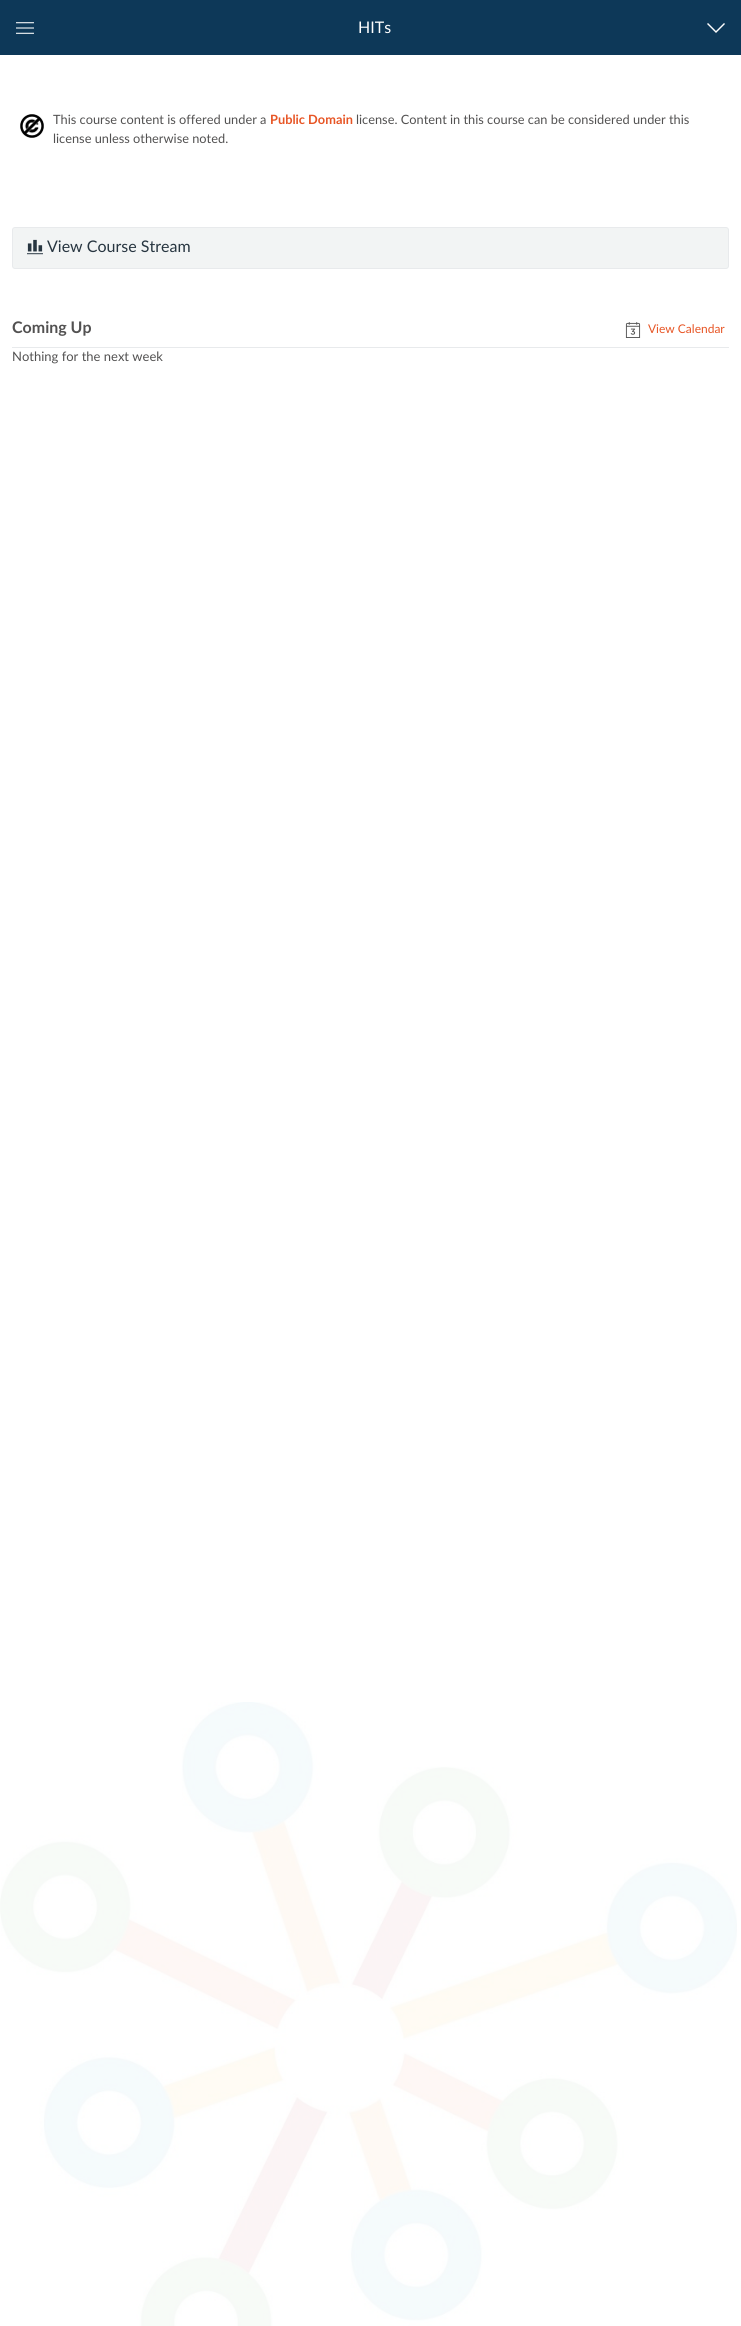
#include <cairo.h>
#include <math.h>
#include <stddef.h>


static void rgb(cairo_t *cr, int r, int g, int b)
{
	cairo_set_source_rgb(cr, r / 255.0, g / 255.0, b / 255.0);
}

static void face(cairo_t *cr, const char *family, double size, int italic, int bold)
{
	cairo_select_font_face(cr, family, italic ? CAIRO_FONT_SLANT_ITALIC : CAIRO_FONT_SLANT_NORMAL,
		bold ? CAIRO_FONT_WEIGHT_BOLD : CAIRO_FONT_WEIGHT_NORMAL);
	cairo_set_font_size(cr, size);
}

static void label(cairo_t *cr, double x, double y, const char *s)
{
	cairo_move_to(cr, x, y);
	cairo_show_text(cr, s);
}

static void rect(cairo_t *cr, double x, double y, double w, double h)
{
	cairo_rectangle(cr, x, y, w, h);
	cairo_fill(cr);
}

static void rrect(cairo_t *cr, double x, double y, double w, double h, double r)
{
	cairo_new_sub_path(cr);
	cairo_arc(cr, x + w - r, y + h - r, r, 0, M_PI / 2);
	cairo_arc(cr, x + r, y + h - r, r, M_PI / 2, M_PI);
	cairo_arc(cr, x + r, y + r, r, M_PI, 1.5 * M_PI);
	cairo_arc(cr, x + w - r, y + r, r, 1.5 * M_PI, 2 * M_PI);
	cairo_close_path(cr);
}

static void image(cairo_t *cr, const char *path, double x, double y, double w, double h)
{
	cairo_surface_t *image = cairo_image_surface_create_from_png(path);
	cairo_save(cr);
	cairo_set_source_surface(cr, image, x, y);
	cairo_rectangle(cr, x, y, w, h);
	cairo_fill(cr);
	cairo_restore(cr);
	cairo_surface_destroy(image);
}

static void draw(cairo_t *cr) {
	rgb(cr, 255, 255, 255);
	cairo_paint(cr);
	rgb(cr, 13, 56, 88);
	rect(cr, 0, 0, 741, 55);
	image(cr, "image0.png", 16, 22, 18, 12);
	face(cr, "Lato", 16, 0, 0);
	rgb(cr, 255, 255, 255);
	label(cr, 358, 33, "HITs");
	cairo_new_path(cr);
	cairo_move_to(cr, 707, 24);
	cairo_line_to(cr, 708, 23);
	cairo_line_to(cr, 716, 31);
	cairo_line_to(cr, 724, 23);
	cairo_line_to(cr, 725, 24);
	cairo_line_to(cr, 716, 33);
	cairo_close_path(cr);
	cairo_fill(cr);
	image(cr, "image1.png", 20, 114, 24, 24);
	face(cr, "Lato", 12.8, 0, 0);
	rgb(cr, 82, 81, 81);
	label(cr, 53, 124, "This course content is offered under a");
	face(cr, "Lato", 12.8, 0, 1);
	rgb(cr, 231, 85, 37);
	label(cr, 270, 124, "Public Domain");
	face(cr, "Lato", 12.8, 0, 0);
	rgb(cr, 82, 81, 81);
	label(cr, 356, 124, "license. Content in this course can be considered under this");
	label(cr, 53, 143, "license unless otherwise noted.");
	rgb(cr, 242, 244, 244);
	rrect(cr, 12.5, 227.5, 716, 41, 2.5);
	cairo_fill_preserve(cr);
	rgb(cr, 232, 234, 236);
	cairo_set_line_width(cr, 1);
	cairo_stroke(cr);
	image(cr, "image2.png", 27, 239, 16, 16);
	face(cr, "Lato", 16, 0, 0);
	rgb(cr, 39, 53, 64);
	label(cr, 47, 252, "View Course Stream");
	rgb(cr, 232, 234, 236);
	rect(cr, 12, 347, 717, 1);
	face(cr, "Lato", 16, 0, 1);
	rgb(cr, 82, 81, 81);
	label(cr, 12, 333, "Coming Up");
	image(cr, "image3.png", 625, 322, 16, 16);
	face(cr, "Lato", 12, 0, 0);
	rgb(cr, 231, 85, 37);
	label(cr, 648, 333, "View Calendar");
	face(cr, "Lato", 13, 0, 0);
	rgb(cr, 82, 81, 81);
	label(cr, 12, 361, "Nothing for the next week");
	image(cr, "image4.png", 0, 1702, 737, 624);
}

int main(void) {
	cairo_surface_t *surface = cairo_image_surface_create(CAIRO_FORMAT_RGB24, 741, 2326);
	cairo_t *cr = cairo_create(surface);
	cairo_font_options_t *options = cairo_font_options_create();
	cairo_font_options_set_hint_metrics(options, CAIRO_HINT_METRICS_OFF);
	cairo_font_options_set_hint_style(options, CAIRO_HINT_STYLE_NONE);
	cairo_set_font_options(cr, options);
	cairo_set_miter_limit(cr, 4);
	draw(cr);
	cairo_surface_write_to_png(surface, "render.png");
	cairo_font_options_destroy(options);
	cairo_destroy(cr);
	cairo_surface_destroy(surface);
	return 0;
}
